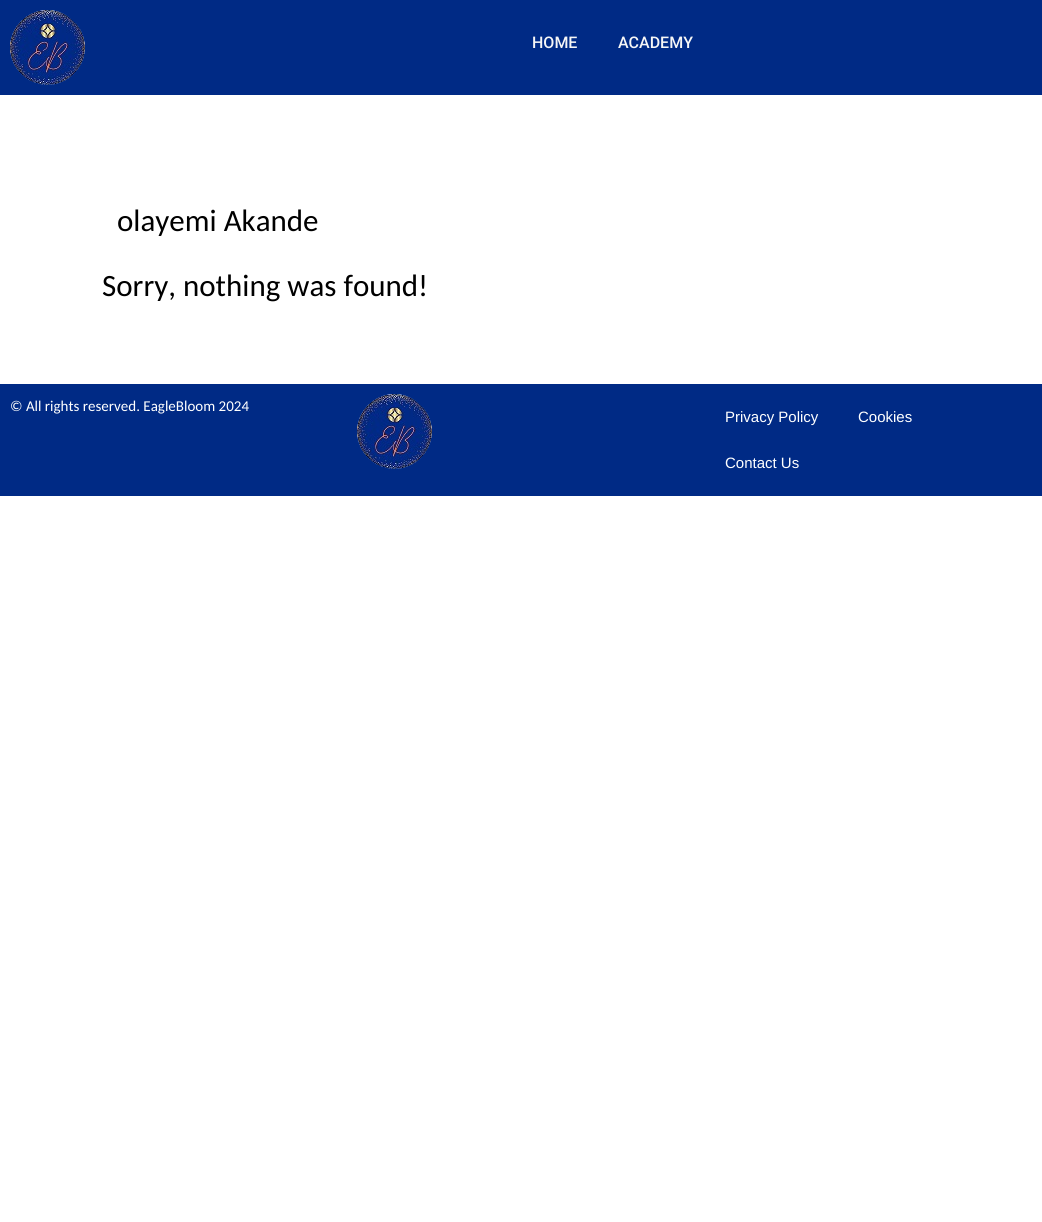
#include <cairo.h>
#include <math.h>
#include <stddef.h>


static void rgb(cairo_t *cr, int r, int g, int b)
{
	cairo_set_source_rgb(cr, r / 255.0, g / 255.0, b / 255.0);
}

static void face(cairo_t *cr, const char *family, double size, int italic, int bold)
{
	cairo_select_font_face(cr, family, italic ? CAIRO_FONT_SLANT_ITALIC : CAIRO_FONT_SLANT_NORMAL,
		bold ? CAIRO_FONT_WEIGHT_BOLD : CAIRO_FONT_WEIGHT_NORMAL);
	cairo_set_font_size(cr, size);
}

static void label(cairo_t *cr, double x, double y, const char *s)
{
	cairo_move_to(cr, x, y);
	cairo_show_text(cr, s);
}

static void rect(cairo_t *cr, double x, double y, double w, double h)
{
	cairo_rectangle(cr, x, y, w, h);
	cairo_fill(cr);
}

static void image(cairo_t *cr, const char *path, double x, double y, double w, double h)
{
	cairo_surface_t *image = cairo_image_surface_create_from_png(path);
	cairo_save(cr);
	cairo_set_source_surface(cr, image, x, y);
	cairo_rectangle(cr, x, y, w, h);
	cairo_fill(cr);
	cairo_restore(cr);
	cairo_surface_destroy(image);
}

static void draw(cairo_t *cr) {
	rgb(cr, 255, 255, 255);
	cairo_paint(cr);
	rgb(cr, 0, 42, 133);
	rect(cr, 0, 0, 1042, 95);
	image(cr, "image0.png", 10, 10, 75, 75);
	face(cr, "Roboto Medium", 16, 0, 0);
	rgb(cr, 246, 246, 246);
	label(cr, 532, 48, "HOME");
	label(cr, 618, 48, "ACADEMY");
	face(cr, "Carlito", 31, 0, 0);
	rgb(cr, 0, 0, 0);
	label(cr, 117, 231, "olayemi Akande");
	label(cr, 102, 296, "Sorry, nothing was found!");
	rgb(cr, 0, 42, 133);
	rect(cr, 0, 384, 1042, 112);
	face(cr, "Carlito", 15, 0, 0);
	rgb(cr, 255, 255, 255);
	label(cr, 10, 411, "© All rights reserved. EagleBloom 2024");
	image(cr, "image0.png", 357, 394, 75, 75);
	face(cr, "Liberation Sans", 15, 0, 0);
	label(cr, 725, 422, "Privacy Policy");
	label(cr, 858, 422, "Cookies");
	label(cr, 725, 468, "Contact Us");
}

int main(void) {
	cairo_surface_t *surface = cairo_image_surface_create(CAIRO_FORMAT_RGB24, 1042, 1222);
	cairo_t *cr = cairo_create(surface);
	cairo_font_options_t *options = cairo_font_options_create();
	cairo_font_options_set_hint_metrics(options, CAIRO_HINT_METRICS_OFF);
	cairo_font_options_set_hint_style(options, CAIRO_HINT_STYLE_NONE);
	cairo_set_font_options(cr, options);
	cairo_set_miter_limit(cr, 4);
	draw(cr);
	cairo_surface_write_to_png(surface, "render.png");
	cairo_font_options_destroy(options);
	cairo_destroy(cr);
	cairo_surface_destroy(surface);
	return 0;
}
